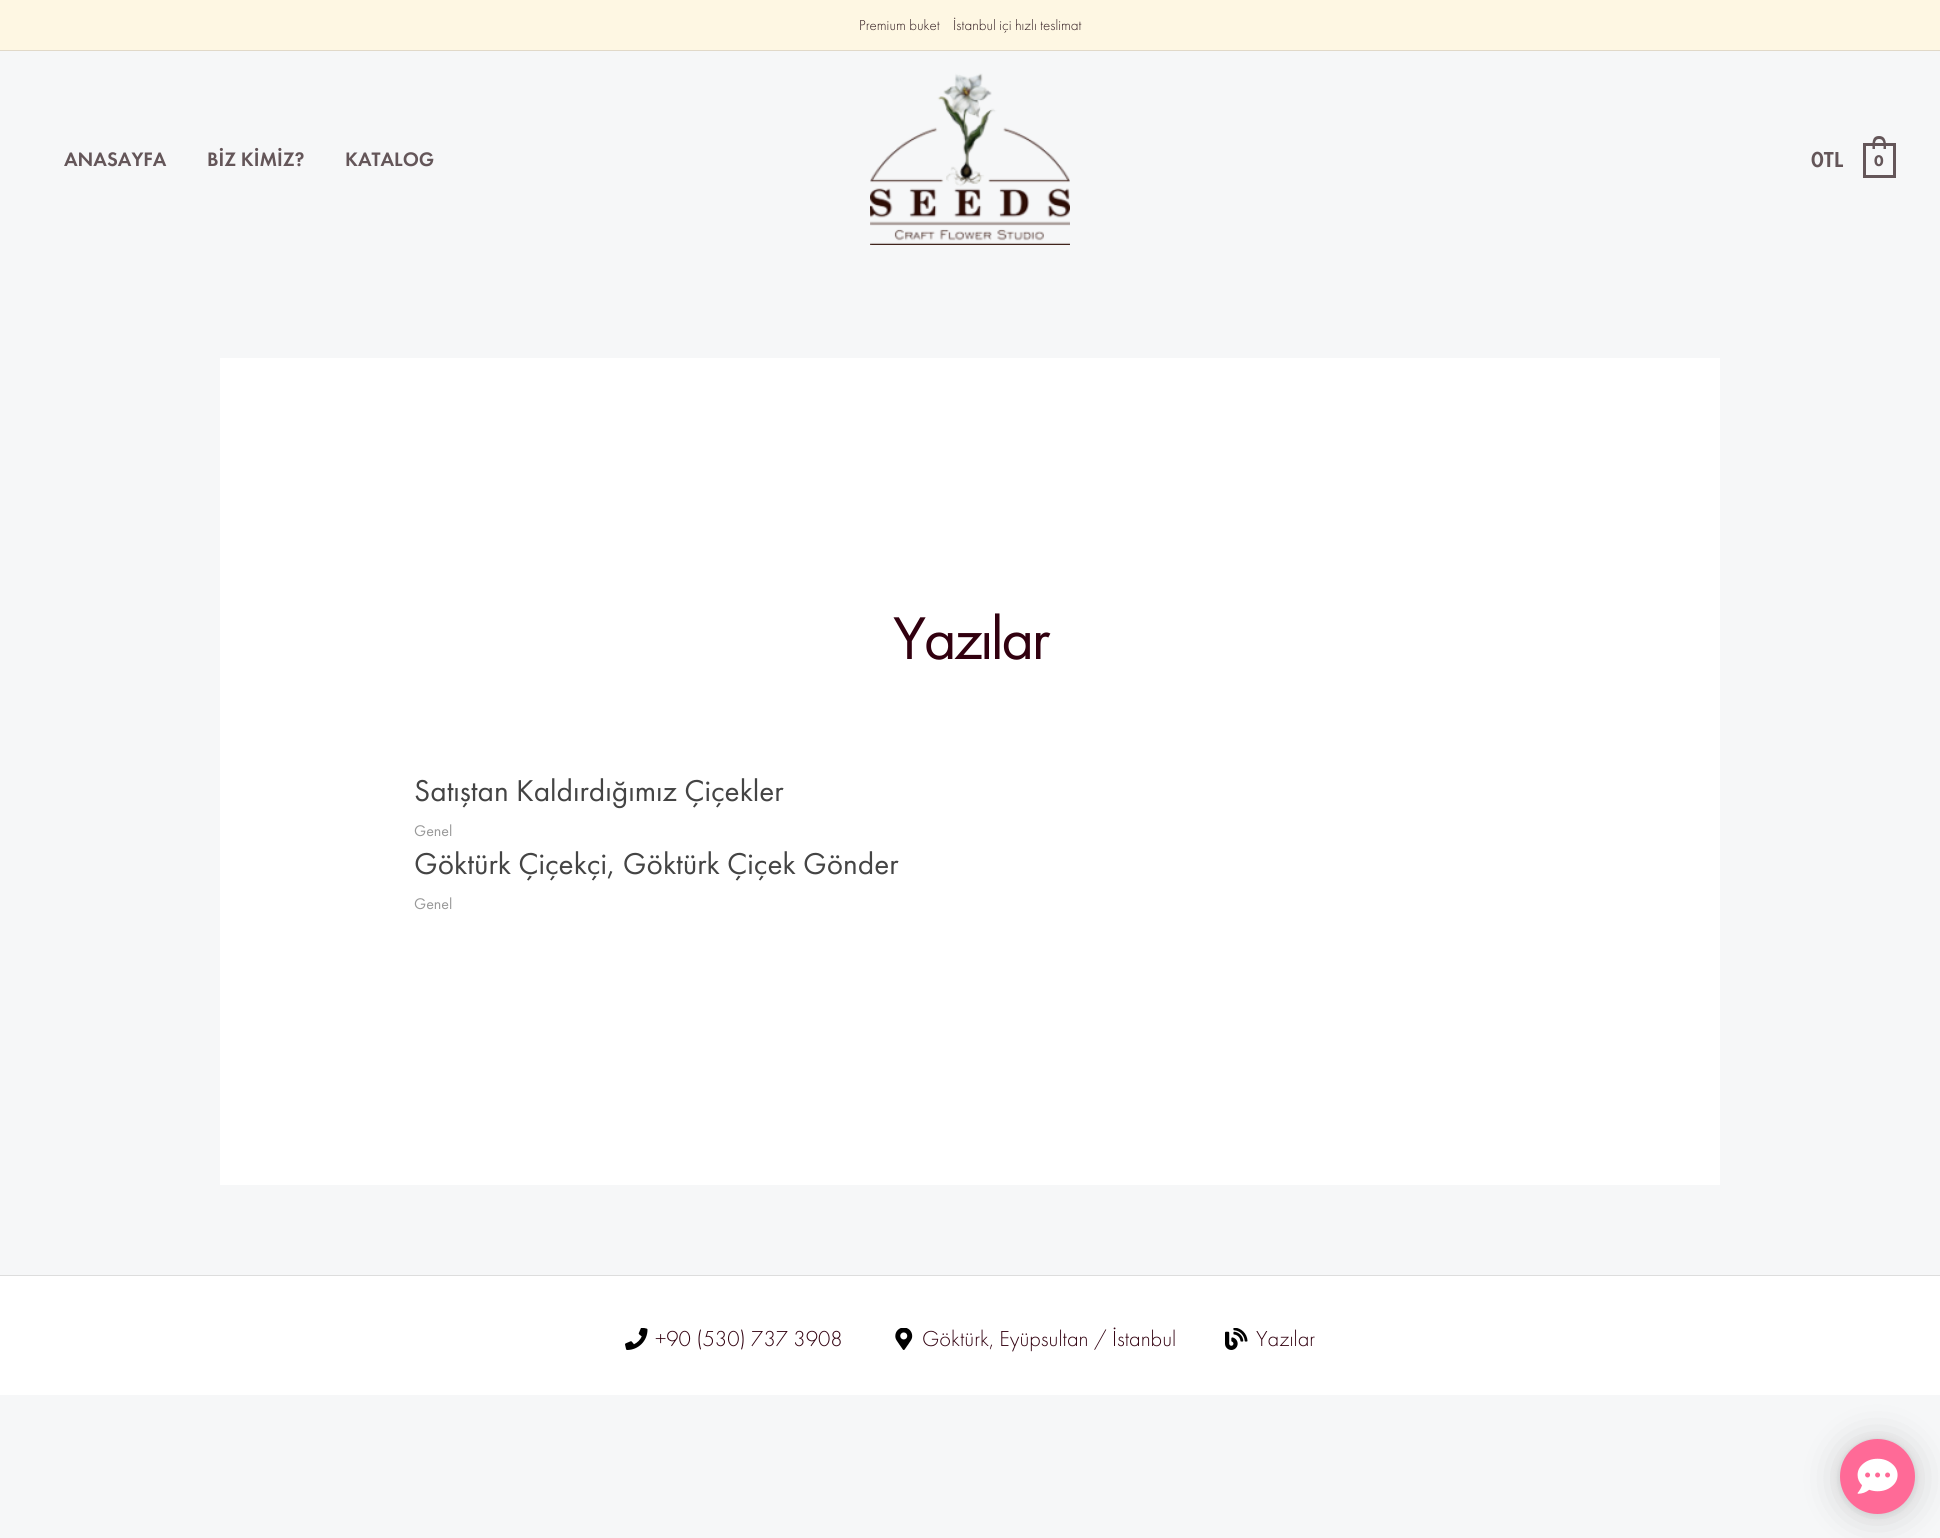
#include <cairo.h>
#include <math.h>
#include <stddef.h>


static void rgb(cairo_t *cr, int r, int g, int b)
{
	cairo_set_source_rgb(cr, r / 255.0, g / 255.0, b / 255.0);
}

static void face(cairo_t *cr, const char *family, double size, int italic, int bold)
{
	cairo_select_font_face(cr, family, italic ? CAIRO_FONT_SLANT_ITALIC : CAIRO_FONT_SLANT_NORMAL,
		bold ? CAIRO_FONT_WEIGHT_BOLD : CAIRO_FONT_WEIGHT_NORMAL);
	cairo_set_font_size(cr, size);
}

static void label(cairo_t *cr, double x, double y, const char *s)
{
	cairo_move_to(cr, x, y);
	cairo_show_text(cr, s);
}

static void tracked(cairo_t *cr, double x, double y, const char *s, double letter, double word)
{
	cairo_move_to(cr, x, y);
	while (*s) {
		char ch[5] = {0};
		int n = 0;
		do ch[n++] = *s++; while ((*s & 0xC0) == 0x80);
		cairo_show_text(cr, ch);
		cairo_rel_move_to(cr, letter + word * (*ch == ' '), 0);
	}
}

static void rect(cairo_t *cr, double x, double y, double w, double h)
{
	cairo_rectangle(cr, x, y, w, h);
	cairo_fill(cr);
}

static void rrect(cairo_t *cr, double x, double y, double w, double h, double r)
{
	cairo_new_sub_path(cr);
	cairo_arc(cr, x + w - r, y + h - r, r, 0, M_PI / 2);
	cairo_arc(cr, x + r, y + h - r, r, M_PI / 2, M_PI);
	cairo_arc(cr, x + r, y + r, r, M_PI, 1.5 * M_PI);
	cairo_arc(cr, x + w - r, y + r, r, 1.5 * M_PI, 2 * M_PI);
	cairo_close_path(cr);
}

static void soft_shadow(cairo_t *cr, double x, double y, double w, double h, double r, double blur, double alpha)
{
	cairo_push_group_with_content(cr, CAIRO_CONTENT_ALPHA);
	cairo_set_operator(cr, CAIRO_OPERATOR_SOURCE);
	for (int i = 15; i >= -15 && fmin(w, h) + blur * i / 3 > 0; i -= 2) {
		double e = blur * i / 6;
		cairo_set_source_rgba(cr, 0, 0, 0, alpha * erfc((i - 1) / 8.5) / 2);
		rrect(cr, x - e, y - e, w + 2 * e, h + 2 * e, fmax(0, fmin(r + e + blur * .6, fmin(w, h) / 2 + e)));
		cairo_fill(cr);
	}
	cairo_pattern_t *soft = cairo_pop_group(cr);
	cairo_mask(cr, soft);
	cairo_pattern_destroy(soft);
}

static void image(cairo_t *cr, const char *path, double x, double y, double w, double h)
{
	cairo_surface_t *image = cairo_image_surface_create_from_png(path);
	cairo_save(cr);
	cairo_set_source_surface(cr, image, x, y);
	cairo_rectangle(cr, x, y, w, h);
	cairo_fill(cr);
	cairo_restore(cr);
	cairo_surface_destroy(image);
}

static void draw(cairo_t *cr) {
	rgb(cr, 246, 247, 248);
	cairo_paint(cr);
	rgb(cr, 254, 247, 227);
	rect(cr, 0, 0, 1940, 50);
	rgb(cr, 225, 217, 201);
	rect(cr, 0, 50, 1940, 1);
	face(cr, "Futura PT Light", 15, 0, 0);
	rgb(cr, 43, 22, 27);
	label(cr, 859, 30, "Premium buket");
	label(cr, 953, 30, "İstanbul içi hızlı teslimat");
	face(cr, "Futura PT Medium", 20.25, 0, 0);
	rgb(cr, 100, 86, 89);
	label(cr, 64, 166, "ANASAYFA");
	label(cr, 207, 166, "BİZ KİMİZ?");
	label(cr, 345, 166, "KATALOG");
	image(cr, "image0.png", 870, 73, 200, 172);
	face(cr, "Futura PT Medium", 22.5, 0, 0);
	label(cr, 1811, 167, "0TL");
	cairo_rectangle(cr, 1864.5, 144.5, 30, 32);
	cairo_set_line_width(cr, 3);
	cairo_stroke(cr);
	cairo_set_fill_rule(cr, CAIRO_FILL_RULE_EVEN_ODD);
	cairo_new_path(cr);
	cairo_move_to(cr, 1879, 136);
	cairo_curve_to(cr, 1886.5, 136, 1886, 143.5, 1886, 149);
	cairo_line_to(cr, 1872.5, 149);
	cairo_curve_to(cr, 1872.5, 143.5, 1871.5, 136, 1879, 136);
	cairo_close_path(cr);
	cairo_move_to(cr, 1879, 139);
	cairo_curve_to(cr, 1884.5, 139, 1883.5, 145, 1883.5, 149);
	cairo_line_to(cr, 1875, 149);
	cairo_curve_to(cr, 1875, 145, 1874, 139, 1879, 139);
	cairo_close_path(cr);
	cairo_fill(cr);
	face(cr, "Futura PT Black", 16, 0, 0);
	label(cr, 1874, 166, "0");
	rgb(cr, 255, 255, 255);
	rect(cr, 220, 358, 1500, 827);
	face(cr, "Futura PT", 62.5, 0, 0);
	rgb(cr, 49, 0, 15);
	tracked(cr, 893, 659, "Yazılar", -2.5, 0);
	face(cr, "Futura PT", 31.25, 0, 0);
	rgb(cr, 68, 68, 68);
	label(cr, 414, 801, "Satıştan Kaldırdığımız Çiçekler");
	face(cr, "Futura PT", 16, 0, 0);
	rgb(cr, 153, 153, 153);
	label(cr, 414, 836, "Genel");
	face(cr, "Futura PT", 31.25, 0, 0);
	rgb(cr, 68, 68, 68);
	label(cr, 414, 874, "Göktürk Çiçekçi, Göktürk Çiçek Gönder");
	face(cr, "Futura PT", 16, 0, 0);
	rgb(cr, 153, 153, 153);
	label(cr, 414, 909, "Genel");
	rgb(cr, 255, 255, 255);
	rect(cr, 0, 1276, 1940, 119);
	rgb(cr, 221, 221, 221);
	rect(cr, 0, 1275, 1940, 1);
	image(cr, "image1.png", 625, 1328, 23, 22);
	face(cr, "Futura PT Light", 22.5, 0, 0);
	rgb(cr, 49, 0, 15);
	label(cr, 655, 1346, "+90 (530) 737 3908");
	image(cr, "image2.png", 895, 1328, 18, 22);
	label(cr, 922, 1346, "Göktürk, Eyüpsultan / İstanbul");
	image(cr, "image3.png", 1225, 1328, 23, 22);
	label(cr, 1256, 1346, "Yazılar");
	rgb(cr, 0, 0, 0);
	soft_shadow(cr, 1840, 1441, 75, 75, 37.5, 20, 0.16);
	soft_shadow(cr, 1840, 1440, 75, 75, 37.5, 4, 0.1);
	rgb(cr, 255, 106, 151);
	cairo_arc(cr, 1877.5, 1476.5, 37.5, 0, 2 * M_PI);
	cairo_fill(cr);
	image(cr, "image4.png", 1857, 1458, 41, 36);
}

int main(void) {
	cairo_surface_t *surface = cairo_image_surface_create(CAIRO_FORMAT_RGB24, 1940, 1538);
	cairo_t *cr = cairo_create(surface);
	cairo_font_options_t *options = cairo_font_options_create();
	cairo_font_options_set_hint_metrics(options, CAIRO_HINT_METRICS_OFF);
	cairo_font_options_set_hint_style(options, CAIRO_HINT_STYLE_NONE);
	cairo_set_font_options(cr, options);
	cairo_set_miter_limit(cr, 4);
	draw(cr);
	cairo_surface_write_to_png(surface, "render.png");
	cairo_font_options_destroy(options);
	cairo_destroy(cr);
	cairo_surface_destroy(surface);
	return 0;
}
